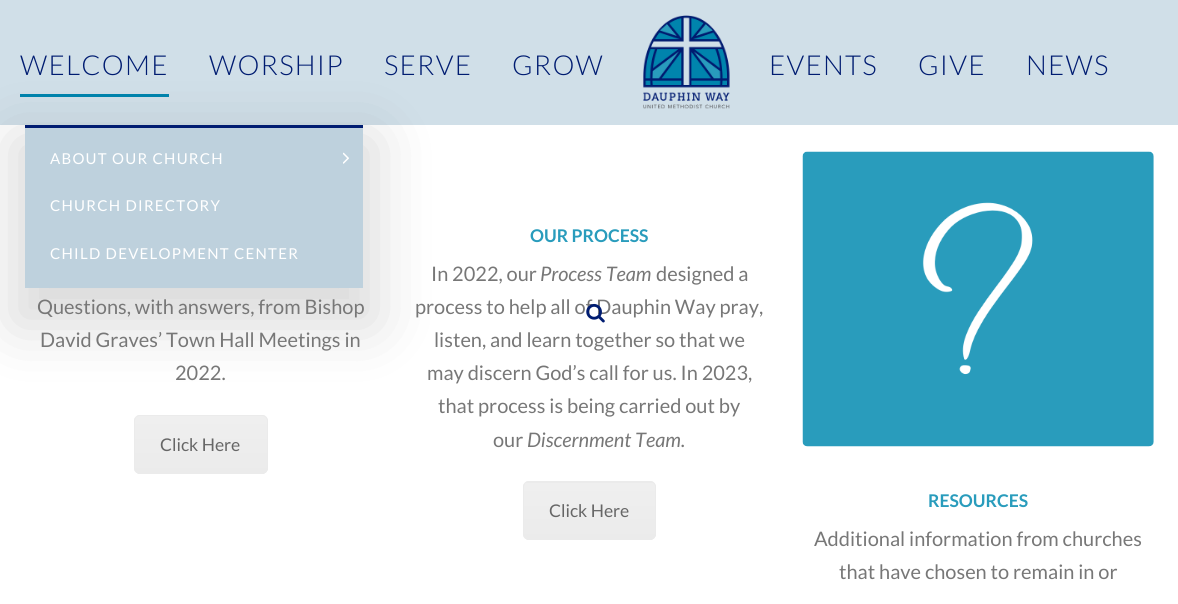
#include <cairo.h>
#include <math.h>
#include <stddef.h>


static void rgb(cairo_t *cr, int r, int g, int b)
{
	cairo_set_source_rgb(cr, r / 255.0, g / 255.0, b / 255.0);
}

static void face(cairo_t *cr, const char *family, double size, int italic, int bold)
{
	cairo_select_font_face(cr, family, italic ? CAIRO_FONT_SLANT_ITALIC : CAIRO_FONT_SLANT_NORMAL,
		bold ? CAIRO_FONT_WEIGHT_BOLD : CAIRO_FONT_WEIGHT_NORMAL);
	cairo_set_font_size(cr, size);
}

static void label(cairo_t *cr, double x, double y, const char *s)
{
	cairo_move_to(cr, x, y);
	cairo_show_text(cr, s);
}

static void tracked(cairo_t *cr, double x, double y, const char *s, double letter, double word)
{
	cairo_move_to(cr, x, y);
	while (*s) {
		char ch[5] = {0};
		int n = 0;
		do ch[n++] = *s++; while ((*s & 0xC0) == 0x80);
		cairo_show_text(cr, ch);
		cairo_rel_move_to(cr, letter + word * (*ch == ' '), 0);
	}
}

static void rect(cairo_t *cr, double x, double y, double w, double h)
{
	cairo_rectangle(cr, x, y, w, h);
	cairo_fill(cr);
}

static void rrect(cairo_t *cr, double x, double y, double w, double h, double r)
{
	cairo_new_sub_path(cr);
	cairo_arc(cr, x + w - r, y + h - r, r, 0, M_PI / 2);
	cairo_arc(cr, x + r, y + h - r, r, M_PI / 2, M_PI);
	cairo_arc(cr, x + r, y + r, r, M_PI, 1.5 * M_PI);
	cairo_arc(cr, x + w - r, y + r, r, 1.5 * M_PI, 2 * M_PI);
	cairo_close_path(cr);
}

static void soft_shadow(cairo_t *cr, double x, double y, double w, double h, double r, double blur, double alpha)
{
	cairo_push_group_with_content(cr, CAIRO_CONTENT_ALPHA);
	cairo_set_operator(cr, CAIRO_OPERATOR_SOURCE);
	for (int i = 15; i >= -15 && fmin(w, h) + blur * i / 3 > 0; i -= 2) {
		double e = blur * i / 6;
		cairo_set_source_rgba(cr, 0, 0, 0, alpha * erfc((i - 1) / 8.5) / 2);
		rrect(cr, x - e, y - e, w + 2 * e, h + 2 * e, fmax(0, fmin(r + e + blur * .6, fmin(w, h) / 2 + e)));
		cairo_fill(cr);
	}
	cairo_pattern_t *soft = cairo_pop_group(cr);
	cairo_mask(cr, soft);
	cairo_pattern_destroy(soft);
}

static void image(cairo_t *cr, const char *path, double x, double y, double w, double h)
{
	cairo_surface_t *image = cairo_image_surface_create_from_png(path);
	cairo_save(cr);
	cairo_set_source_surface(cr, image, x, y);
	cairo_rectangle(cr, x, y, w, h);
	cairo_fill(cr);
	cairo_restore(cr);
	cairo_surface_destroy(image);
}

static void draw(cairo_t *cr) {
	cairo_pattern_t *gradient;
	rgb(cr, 255, 255, 255);
	cairo_paint(cr);
	rgb(cr, 208, 223, 232);
	rect(cr, 0, 0, 1178, 125);
	face(cr, "Lato Light", 27.5, 0, 0);
	rgb(cr, 0, 28, 113);
	tracked(cr, 20, 75, "WELCOME", 1.25, 0);
	rgb(cr, 0, 132, 173);
	rect(cr, 20, 94, 149, 3);
	rgb(cr, 235, 235, 235);
	rrect(cr, 134, 415, 134, 59, 6);
	cairo_fill(cr);
	cairo_save(cr);
	rrect(cr, 134, 415, 134, 59, 6);
	cairo_clip(cr);
	gradient = cairo_pattern_create_linear(201, 416, 201, 473);
	cairo_pattern_add_color_stop_rgba(gradient, 0, 1, 1, 1, 0.2);
	cairo_pattern_add_color_stop_rgba(gradient, 1, 1, 1, 1, 0.01);
	cairo_set_source(cr, gradient);
	cairo_pattern_destroy(gradient);
	rect(cr, 134, 416, 134, 54);
	cairo_restore(cr);
	rrect(cr, 134.5, 415.5, 133, 58, 5.5);
	cairo_set_line_width(cr, 1);
	cairo_stroke(cr);
	rgb(cr, 0, 0, 0);
	soft_shadow(cr, 13, 138, 362, 187, 0, 31, 0.15);
	rgb(cr, 190, 209, 221);
	rect(cr, 25, 128, 338, 160);
	rgb(cr, 0, 28, 113);
	rect(cr, 25, 125, 338, 3);
	face(cr, "Lato", 15, 0, 0);
	rgb(cr, 255, 255, 255);
	tracked(cr, 50, 164, "ABOUT OUR CHURCH", 1.25, 0);
	image(cr, "image0.png", 343, 152, 6, 12);
	tracked(cr, 50, 211, "CHURCH DIRECTORY", 1.25, 0);
	tracked(cr, 50, 259, "CHILD DEVELOPMENT CENTER", 1.25, 0);
	image(cr, "image1.png", 643, 15, 87, 94);
	face(cr, "Lato Light", 27.5, 0, 0);
	rgb(cr, 0, 28, 113);
	tracked(cr, 209, 75, "WORSHIP", 1.25, 0);
	tracked(cr, 384, 75, "SERVE", 1.25, 0);
	tracked(cr, 512, 75, "GROW", 1.25, 0);
	tracked(cr, 769, 75, "EVENTS", 1.25, 0);
	tracked(cr, 918, 75, "GIVE", 1.25, 0);
	tracked(cr, 1026, 75, "NEWS", 1.25, 0);
	face(cr, "Lato", 20, 0, 0);
	rgb(cr, 119, 119, 119);
	label(cr, 415, 314, "process to help all of Dauphin Way pray,");
	image(cr, "image2.png", 586, 303, 19, 20);
	label(cr, 37, 314, "Questions, with answers, from Bishop");
	label(cr, 40, 347, "David Graves’ Town Hall Meetings in");
	label(cr, 175, 380, "2022.");
	face(cr, "Lato", 17.5, 0, 0);
	rgb(cr, 102, 102, 102);
	label(cr, 160, 451, "Click Here");
	face(cr, "Lato", 17.5, 0, 1);
	rgb(cr, 41, 156, 188);
	label(cr, 530, 242, "OUR PROCESS");
	face(cr, "Lato", 20, 0, 0);
	rgb(cr, 119, 119, 119);
	label(cr, 431, 281, "In 2022, our");
	face(cr, "Lato", 20, 1, 0);
	label(cr, 540, 281, "Process Team");
	face(cr, "Lato", 20, 0, 0);
	label(cr, 656, 281, "designed a");
	label(cr, 434, 347, "listen, and learn together so that we");
	label(cr, 427, 380, "may discern God’s call for us. In 2023,");
	label(cr, 438, 413, "that process is being carried out by");
	label(cr, 493, 447, "our");
	face(cr, "Lato", 20, 1, 0);
	label(cr, 527, 447, "Discernment Team.");
	rgb(cr, 235, 235, 235);
	rrect(cr, 523, 481, 133, 59, 6);
	cairo_fill(cr);
	cairo_save(cr);
	rrect(cr, 523, 481, 133, 59, 6);
	cairo_clip(cr);
	gradient = cairo_pattern_create_linear(589, 483, 589, 539);
	cairo_pattern_add_color_stop_rgba(gradient, 0, 1, 1, 1, 0.2);
	cairo_pattern_add_color_stop_rgba(gradient, 1, 1, 1, 1, 0.01);
	cairo_set_source(cr, gradient);
	cairo_pattern_destroy(gradient);
	rect(cr, 523, 483, 133, 53);
	cairo_restore(cr);
	rrect(cr, 523.5, 481.5, 132, 58, 5.5);
	cairo_stroke(cr);
	face(cr, "Lato", 17.5, 0, 0);
	rgb(cr, 102, 102, 102);
	label(cr, 549, 517, "Click Here");
	image(cr, "image3.png", 802, 151, 352, 296);
	face(cr, "Lato", 17.5, 0, 1);
	rgb(cr, 41, 156, 188);
	label(cr, 928, 507, "RESOURCES");
	face(cr, "Lato", 20, 0, 0);
	rgb(cr, 119, 119, 119);
	label(cr, 814, 546, "Additional information from churches");
	label(cr, 839, 579, "that have chosen to remain in or");
}

int main(void) {
	cairo_surface_t *surface = cairo_image_surface_create(CAIRO_FORMAT_RGB24, 1178, 604);
	cairo_t *cr = cairo_create(surface);
	cairo_font_options_t *options = cairo_font_options_create();
	cairo_font_options_set_hint_metrics(options, CAIRO_HINT_METRICS_OFF);
	cairo_font_options_set_hint_style(options, CAIRO_HINT_STYLE_NONE);
	cairo_set_font_options(cr, options);
	cairo_set_miter_limit(cr, 4);
	draw(cr);
	cairo_surface_write_to_png(surface, "render.png");
	cairo_font_options_destroy(options);
	cairo_destroy(cr);
	cairo_surface_destroy(surface);
	return 0;
}
